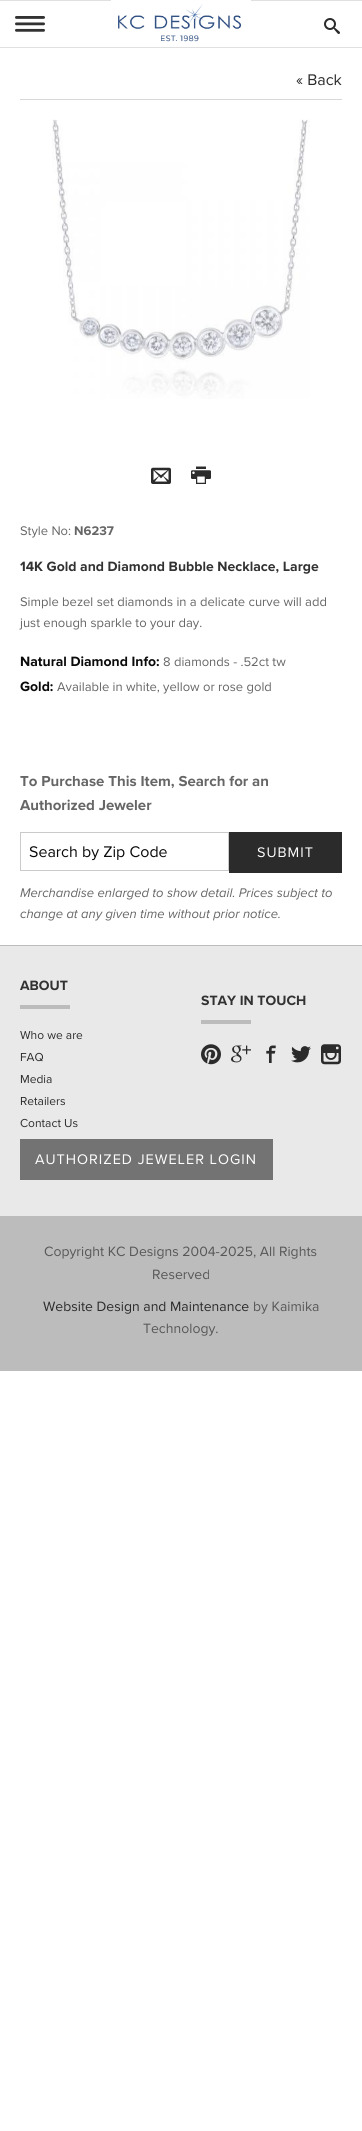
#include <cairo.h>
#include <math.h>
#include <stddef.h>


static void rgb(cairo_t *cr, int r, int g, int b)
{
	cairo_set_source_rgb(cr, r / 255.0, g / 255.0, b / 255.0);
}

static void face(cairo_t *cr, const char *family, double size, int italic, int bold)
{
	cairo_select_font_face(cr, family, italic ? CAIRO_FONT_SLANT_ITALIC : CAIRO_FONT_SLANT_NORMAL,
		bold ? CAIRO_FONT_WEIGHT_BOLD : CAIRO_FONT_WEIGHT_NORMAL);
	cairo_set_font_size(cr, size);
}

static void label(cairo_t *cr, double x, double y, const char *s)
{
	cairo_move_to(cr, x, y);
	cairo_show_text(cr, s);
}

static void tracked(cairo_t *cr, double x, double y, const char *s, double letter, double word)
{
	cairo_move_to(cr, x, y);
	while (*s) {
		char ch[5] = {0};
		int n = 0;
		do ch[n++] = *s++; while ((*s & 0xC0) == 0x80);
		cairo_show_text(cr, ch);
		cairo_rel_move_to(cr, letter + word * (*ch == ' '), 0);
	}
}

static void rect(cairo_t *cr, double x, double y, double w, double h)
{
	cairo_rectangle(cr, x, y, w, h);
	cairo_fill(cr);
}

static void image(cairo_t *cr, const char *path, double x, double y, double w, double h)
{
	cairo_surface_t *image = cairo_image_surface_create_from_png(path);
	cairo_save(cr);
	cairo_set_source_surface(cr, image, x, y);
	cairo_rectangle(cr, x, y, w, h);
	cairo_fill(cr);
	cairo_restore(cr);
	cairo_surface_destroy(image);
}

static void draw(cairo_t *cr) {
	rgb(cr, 255, 255, 255);
	cairo_paint(cr);
	rgb(cr, 224, 224, 224);
	rect(cr, 0, 0, 362, 1);
	rect(cr, 0, 47, 362, 1);
	image(cr, "image0.png", 15, 16, 30, 16);
	image(cr, "image1.png", 324, 18, 16, 16);
	image(cr, "image2.png", 111, 0, 140, 42);
	rgb(cr, 216, 216, 216);
	rect(cr, 20, 99, 322, 1);
	face(cr, "Proxima Nova", 16, 0, 0);
	rgb(cr, 43, 43, 43);
	label(cr, 296, 85, "« Back");
	image(cr, "image3.png", 52, 119, 258, 280);
	image(cr, "image4.png", 151, 467, 20, 17);
	image(cr, "image5.png", 191, 466, 20, 18);
	face(cr, "Proxima Nova", 13, 0, 0);
	rgb(cr, 102, 102, 102);
	label(cr, 20, 535, "Style No:");
	face(cr, "Proxima Nova", 13, 0, 1);
	label(cr, 74, 535, "N6237");
	face(cr, "Proxima Nova", 14, 0, 1);
	rgb(cr, 50, 50, 50);
	label(cr, 20, 571, "14K Gold and Diamond Bubble Necklace, Large");
	face(cr, "Proxima Nova", 13, 0, 0);
	rgb(cr, 102, 102, 102);
	label(cr, 20, 606, "Simple bezel set diamonds in a delicate curve will add");
	label(cr, 20, 627, "just enough sparkle to your day.");
	face(cr, "Proxima Nova", 14, 0, 1);
	rgb(cr, 10, 10, 10);
	label(cr, 20, 666, "Natural Diamond Info:");
	face(cr, "Proxima Nova", 13, 0, 0);
	rgb(cr, 102, 102, 102);
	label(cr, 163, 666, "8 diamonds - .52ct tw");
	face(cr, "Proxima Nova", 14, 0, 1);
	rgb(cr, 10, 10, 10);
	label(cr, 20, 691, "Gold:");
	face(cr, "Proxima Nova", 13, 0, 0);
	rgb(cr, 102, 102, 102);
	label(cr, 57, 691, "Available in white, yellow or rose gold");
	face(cr, "Proxima Nova", 15, 0, 1);
	label(cr, 20, 786, "To Purchase This Item, Search for an");
	label(cr, 20, 810, "Authorized Jeweler");
	cairo_rectangle(cr, 20.5, 832.5, 208, 38);
	rgb(cr, 202, 202, 202);
	cairo_set_line_width(cr, 1);
	cairo_stroke(cr);
	face(cr, "Proxima Nova", 16, 0, 0);
	rgb(cr, 10, 10, 10);
	label(cr, 29, 857, "Search by Zip Code");
	rgb(cr, 43, 43, 43);
	rect(cr, 229, 832, 113, 41);
	face(cr, "Proxima Nova", 14.4, 0, 0);
	rgb(cr, 254, 254, 254);
	tracked(cr, 257, 857, "SUBMIT", 1, 0);
	face(cr, "Proxima Nova", 13, 1, 0);
	rgb(cr, 102, 102, 102);
	label(cr, 20, 897, "Merchandise enlarged to show detail. Prices subject to");
	label(cr, 20, 918, "change at any given time without prior notice.");
	rgb(cr, 233, 233, 233);
	rect(cr, 0, 946, 362, 270);
	rgb(cr, 188, 188, 188);
	rect(cr, 0, 945, 362, 1);
	face(cr, "Proxima Nova", 14, 0, 1);
	rgb(cr, 50, 50, 50);
	label(cr, 20, 990, "ABOUT");
	rgb(cr, 188, 188, 188);
	rect(cr, 20, 1005, 50, 4);
	face(cr, "Proxima Nova", 12, 0, 0);
	rgb(cr, 43, 43, 43);
	label(cr, 20, 1039, "Who we are");
	label(cr, 20, 1061, "FAQ");
	label(cr, 20, 1083, "Media");
	label(cr, 20, 1105, "Retailers");
	label(cr, 20, 1127, "Contact Us");
	face(cr, "Proxima Nova", 14, 0, 1);
	rgb(cr, 50, 50, 50);
	label(cr, 201, 1005, "STAY IN TOUCH");
	rgb(cr, 188, 188, 188);
	rect(cr, 201, 1020, 50, 4);
	image(cr, "image6.png", 201, 1044, 20, 21);
	image(cr, "image7.png", 231, 1045, 20, 18);
	image(cr, "image8.png", 266, 1045, 10, 18);
	image(cr, "image9.png", 291, 1046, 20, 17);
	image(cr, "image10.png", 321, 1044, 20, 21);
	rgb(cr, 115, 115, 115);
	rect(cr, 20, 1139, 253, 41);
	face(cr, "Proxima Nova", 14.4, 0, 0);
	rgb(cr, 254, 254, 254);
	tracked(cr, 35, 1164, "AUTHORIZED JEWELER LOGIN", 1, 0);
	rgb(cr, 188, 188, 188);
	rect(cr, 0, 1216, 362, 155);
	face(cr, "Proxima Nova", 14, 0, 0);
	rgb(cr, 87, 87, 87);
	label(cr, 44, 1256, "Copyright KC Designs 2004-2025, All Rights");
	label(cr, 152, 1279, "Reserved");
	rgb(cr, 43, 43, 43);
	label(cr, 43, 1311, "Website Design and Maintenance");
	rgb(cr, 87, 87, 87);
	label(cr, 253, 1311, "by Kaimika");
	label(cr, 143, 1333, "Technology.");
}

int main(void) {
	cairo_surface_t *surface = cairo_image_surface_create(CAIRO_FORMAT_RGB24, 362, 2131);
	cairo_t *cr = cairo_create(surface);
	cairo_font_options_t *options = cairo_font_options_create();
	cairo_font_options_set_hint_metrics(options, CAIRO_HINT_METRICS_OFF);
	cairo_font_options_set_hint_style(options, CAIRO_HINT_STYLE_NONE);
	cairo_set_font_options(cr, options);
	cairo_set_miter_limit(cr, 4);
	draw(cr);
	cairo_surface_write_to_png(surface, "render.png");
	cairo_font_options_destroy(options);
	cairo_destroy(cr);
	cairo_surface_destroy(surface);
	return 0;
}
